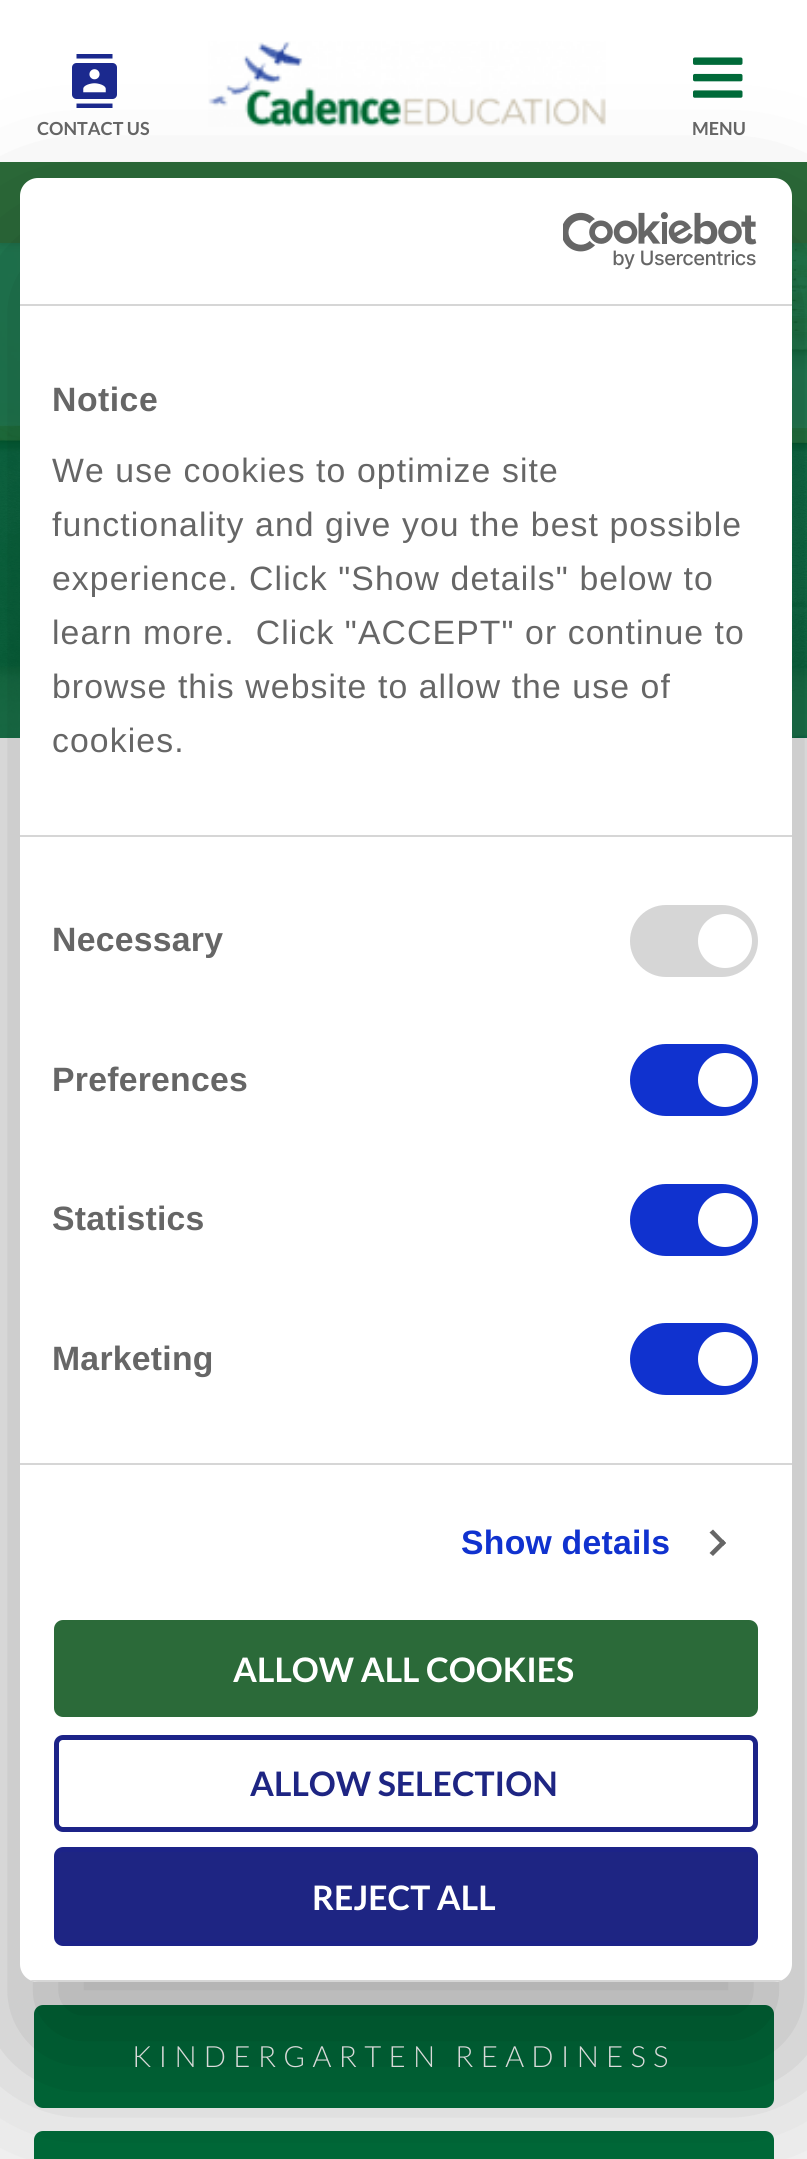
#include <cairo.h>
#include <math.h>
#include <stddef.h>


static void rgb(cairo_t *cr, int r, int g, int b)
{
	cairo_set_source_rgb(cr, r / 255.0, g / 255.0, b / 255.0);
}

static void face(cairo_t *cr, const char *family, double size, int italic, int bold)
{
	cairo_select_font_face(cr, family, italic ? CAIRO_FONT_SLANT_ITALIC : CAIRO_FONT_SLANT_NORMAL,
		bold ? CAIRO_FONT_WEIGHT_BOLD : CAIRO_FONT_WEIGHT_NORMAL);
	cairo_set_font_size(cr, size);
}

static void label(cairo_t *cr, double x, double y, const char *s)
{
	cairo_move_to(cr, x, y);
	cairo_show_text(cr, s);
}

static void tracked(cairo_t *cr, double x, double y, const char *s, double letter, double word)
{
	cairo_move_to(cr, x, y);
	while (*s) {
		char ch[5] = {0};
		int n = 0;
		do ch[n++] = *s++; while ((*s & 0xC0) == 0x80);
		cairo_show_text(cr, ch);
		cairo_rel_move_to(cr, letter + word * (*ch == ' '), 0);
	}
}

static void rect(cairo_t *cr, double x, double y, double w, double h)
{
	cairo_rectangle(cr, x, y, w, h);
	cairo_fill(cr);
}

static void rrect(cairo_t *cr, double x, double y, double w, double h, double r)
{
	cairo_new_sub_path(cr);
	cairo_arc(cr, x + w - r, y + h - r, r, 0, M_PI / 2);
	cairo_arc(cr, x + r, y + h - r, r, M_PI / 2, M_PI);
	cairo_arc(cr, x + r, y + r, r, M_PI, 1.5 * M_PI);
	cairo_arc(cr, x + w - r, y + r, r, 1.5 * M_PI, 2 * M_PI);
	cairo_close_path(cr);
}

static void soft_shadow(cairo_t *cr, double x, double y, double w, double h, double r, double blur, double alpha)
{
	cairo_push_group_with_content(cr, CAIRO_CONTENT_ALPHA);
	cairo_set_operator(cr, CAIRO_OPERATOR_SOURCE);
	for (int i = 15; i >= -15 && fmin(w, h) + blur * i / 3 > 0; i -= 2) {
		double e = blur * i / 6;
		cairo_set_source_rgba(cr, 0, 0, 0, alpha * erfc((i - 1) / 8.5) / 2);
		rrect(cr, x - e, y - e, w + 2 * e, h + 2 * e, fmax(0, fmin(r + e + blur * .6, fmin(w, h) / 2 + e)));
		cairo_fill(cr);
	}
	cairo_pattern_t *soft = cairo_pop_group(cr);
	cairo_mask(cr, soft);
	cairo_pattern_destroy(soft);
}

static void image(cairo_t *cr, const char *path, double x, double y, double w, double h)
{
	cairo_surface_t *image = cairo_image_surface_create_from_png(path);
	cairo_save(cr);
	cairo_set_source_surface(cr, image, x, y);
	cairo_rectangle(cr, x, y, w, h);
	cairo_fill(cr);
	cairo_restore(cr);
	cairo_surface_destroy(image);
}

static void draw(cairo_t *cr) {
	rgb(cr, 255, 255, 255);
	cairo_paint(cr);
	image(cr, "image3.png", 0, 243, 807, 495);
	rgb(cr, 0, 0, 0);
	soft_shadow(cr, 0, 0, 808, 243, 0, 5.5, 0.15);
	rgb(cr, 255, 255, 255);
	rect(cr, 0, 0, 807, 162);
	image(cr, "image0.png", 208, 41, 398, 86);
	image(cr, "image1.png", 72, 54, 45, 54);
	face(cr, "Lato", 18, 0, 1);
	rgb(cr, 102, 102, 102);
	label(cr, 37, 135, "CONTACT US");
	image(cr, "image2.png", 693, 57, 50, 41);
	label(cr, 692, 135, "MENU");
	rgb(cr, 43, 106, 57);
	rect(cr, 0, 162, 807, 81);
	rgb(cr, 242, 242, 242);
	rect(cr, 0, 738, 807, 1421);
	rgb(cr, 0, 106, 57);
	rrect(cr, 34, 2005, 740, 103, 9);
	cairo_fill(cr);
	face(cr, "Lato Light", 29.25, 0, 0);
	rgb(cr, 255, 255, 255);
	tracked(cr, 132, 2067, "KINDERGARTEN READINESS", 7.2, 0);
	rgb(cr, 0, 106, 57);
	rrect(cr, 34, 2131, 740, 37, 9);
	cairo_fill(cr);
	rgb(cr, 0, 0, 0);
	soft_shadow(cr, 20, 250, 772, 1804, 18, 76.5, 0.3);
	rgb(cr, 255, 255, 255);
	rrect(cr, 20, 178, 772, 1804, 18);
	cairo_fill(cr);
	rgb(cr, 214, 214, 214);
	rect(cr, 20, 304, 772, 2);
	image(cr, "image4.png", 563, 212, 194, 58);
	rect(cr, 20, 835, 772, 2);
	face(cr, "Liberation Sans", 33.75, 0, 1);
	rgb(cr, 102, 102, 102);
	tracked(cr, 52, 411, "Notice", 0.5, 0);
	face(cr, "Liberation Sans", 33.75, 0, 0);
	tracked(cr, 52, 482, "We use cookies to optimize site", 1.1, 0);
	tracked(cr, 52, 536, "functionality and give you the best possible", 1.1, 0);
	tracked(cr, 52, 590, "experience. Click \"Show details\" below to", 1.1, 0);
	tracked(cr, 52, 644, "learn more.  Click \"ACCEPT\" or continue to", 1.1, 0);
	tracked(cr, 52, 698, "browse this website to allow the use of", 1.1, 0);
	tracked(cr, 52, 752, "cookies.", 1.1, 0);
	rgb(cr, 214, 214, 214);
	rect(cr, 20, 1463, 772, 2);
	face(cr, "Liberation Sans", 33.75, 0, 1);
	rgb(cr, 102, 102, 102);
	tracked(cr, 52, 951, "Necessary", 0.25, 0);
	rgb(cr, 214, 214, 214);
	rrect(cr, 630, 905, 128, 72, 36);
	cairo_fill(cr);
	rgb(cr, 255, 255, 255);
	cairo_arc(cr, 725, 941, 27, 0, 2 * M_PI);
	cairo_fill(cr);
	rgb(cr, 102, 102, 102);
	tracked(cr, 52, 1091, "Preferences", 0.25, 0);
	rgb(cr, 16, 50, 207);
	rrect(cr, 630, 1044, 128, 72, 36);
	cairo_fill(cr);
	rgb(cr, 255, 255, 255);
	cairo_arc(cr, 725, 1080, 27, 0, 2 * M_PI);
	cairo_fill(cr);
	rgb(cr, 102, 102, 102);
	tracked(cr, 52, 1230, "Statistics", 0.25, 0);
	rgb(cr, 16, 50, 207);
	rrect(cr, 630, 1184, 128, 72, 36);
	cairo_fill(cr);
	rgb(cr, 255, 255, 255);
	cairo_arc(cr, 725, 1220, 27, 0, 2 * M_PI);
	cairo_fill(cr);
	rgb(cr, 102, 102, 102);
	tracked(cr, 52, 1370, "Marketing", 0.25, 0);
	rgb(cr, 16, 50, 207);
	rrect(cr, 630, 1323, 128, 72, 36);
	cairo_fill(cr);
	rgb(cr, 255, 255, 255);
	cairo_arc(cr, 725, 1359, 27, 0, 2 * M_PI);
	cairo_fill(cr);
	rgb(cr, 16, 50, 207);
	tracked(cr, 461, 1554, "Show details", 0.25, 0);
	rgb(cr, 102, 102, 102);
	cairo_new_path(cr);
	cairo_move_to(cr, 713, 1529.5);
	cairo_line_to(cr, 726, 1543);
	cairo_line_to(cr, 723, 1546);
	cairo_line_to(cr, 709.5, 1532.5);
	cairo_close_path(cr);
	cairo_fill(cr);
	cairo_new_path(cr);
	cairo_move_to(cr, 723, 1539.5);
	cairo_line_to(cr, 726, 1543);
	cairo_line_to(cr, 713, 1556);
	cairo_line_to(cr, 709.5, 1553);
	cairo_close_path(cr);
	cairo_fill(cr);
	cairo_save(cr);
	rrect(cr, 20, 178, 772, 1804, 18);
	cairo_clip(cr);
	rgb(cr, 214, 214, 214);
	rect(cr, 30, 1980, 752, 2);
	cairo_restore(cr);
	rgb(cr, 43, 106, 57);
	rrect(cr, 56.5, 1622.5, 699, 92, 6.5);
	cairo_fill_preserve(cr);
	cairo_set_line_width(cr, 5);
	cairo_stroke(cr);
	face(cr, "Lato", 33.75, 0, 1);
	rgb(cr, 255, 255, 255);
	label(cr, 233, 1682, "ALLOW ALL COOKIES");
	rrect(cr, 56.5, 1737.5, 699, 92, 6.5);
	rgb(cr, 28, 35, 136);
	cairo_stroke(cr);
	rgb(cr, 30, 37, 131);
	label(cr, 250, 1796, "ALLOW SELECTION");
	rrect(cr, 56.5, 1849.5, 699, 94, 6.5);
	cairo_fill_preserve(cr);
	rgb(cr, 28, 35, 136);
	cairo_stroke(cr);
	rgb(cr, 255, 255, 255);
	label(cr, 312, 1910, "REJECT ALL");
}

int main(void) {
	cairo_surface_t *surface = cairo_image_surface_create(CAIRO_FORMAT_RGB24, 807, 2159);
	cairo_t *cr = cairo_create(surface);
	cairo_font_options_t *options = cairo_font_options_create();
	cairo_font_options_set_hint_metrics(options, CAIRO_HINT_METRICS_OFF);
	cairo_font_options_set_hint_style(options, CAIRO_HINT_STYLE_NONE);
	cairo_set_font_options(cr, options);
	cairo_set_miter_limit(cr, 4);
	draw(cr);
	cairo_surface_write_to_png(surface, "render.png");
	cairo_font_options_destroy(options);
	cairo_destroy(cr);
	cairo_surface_destroy(surface);
	return 0;
}
